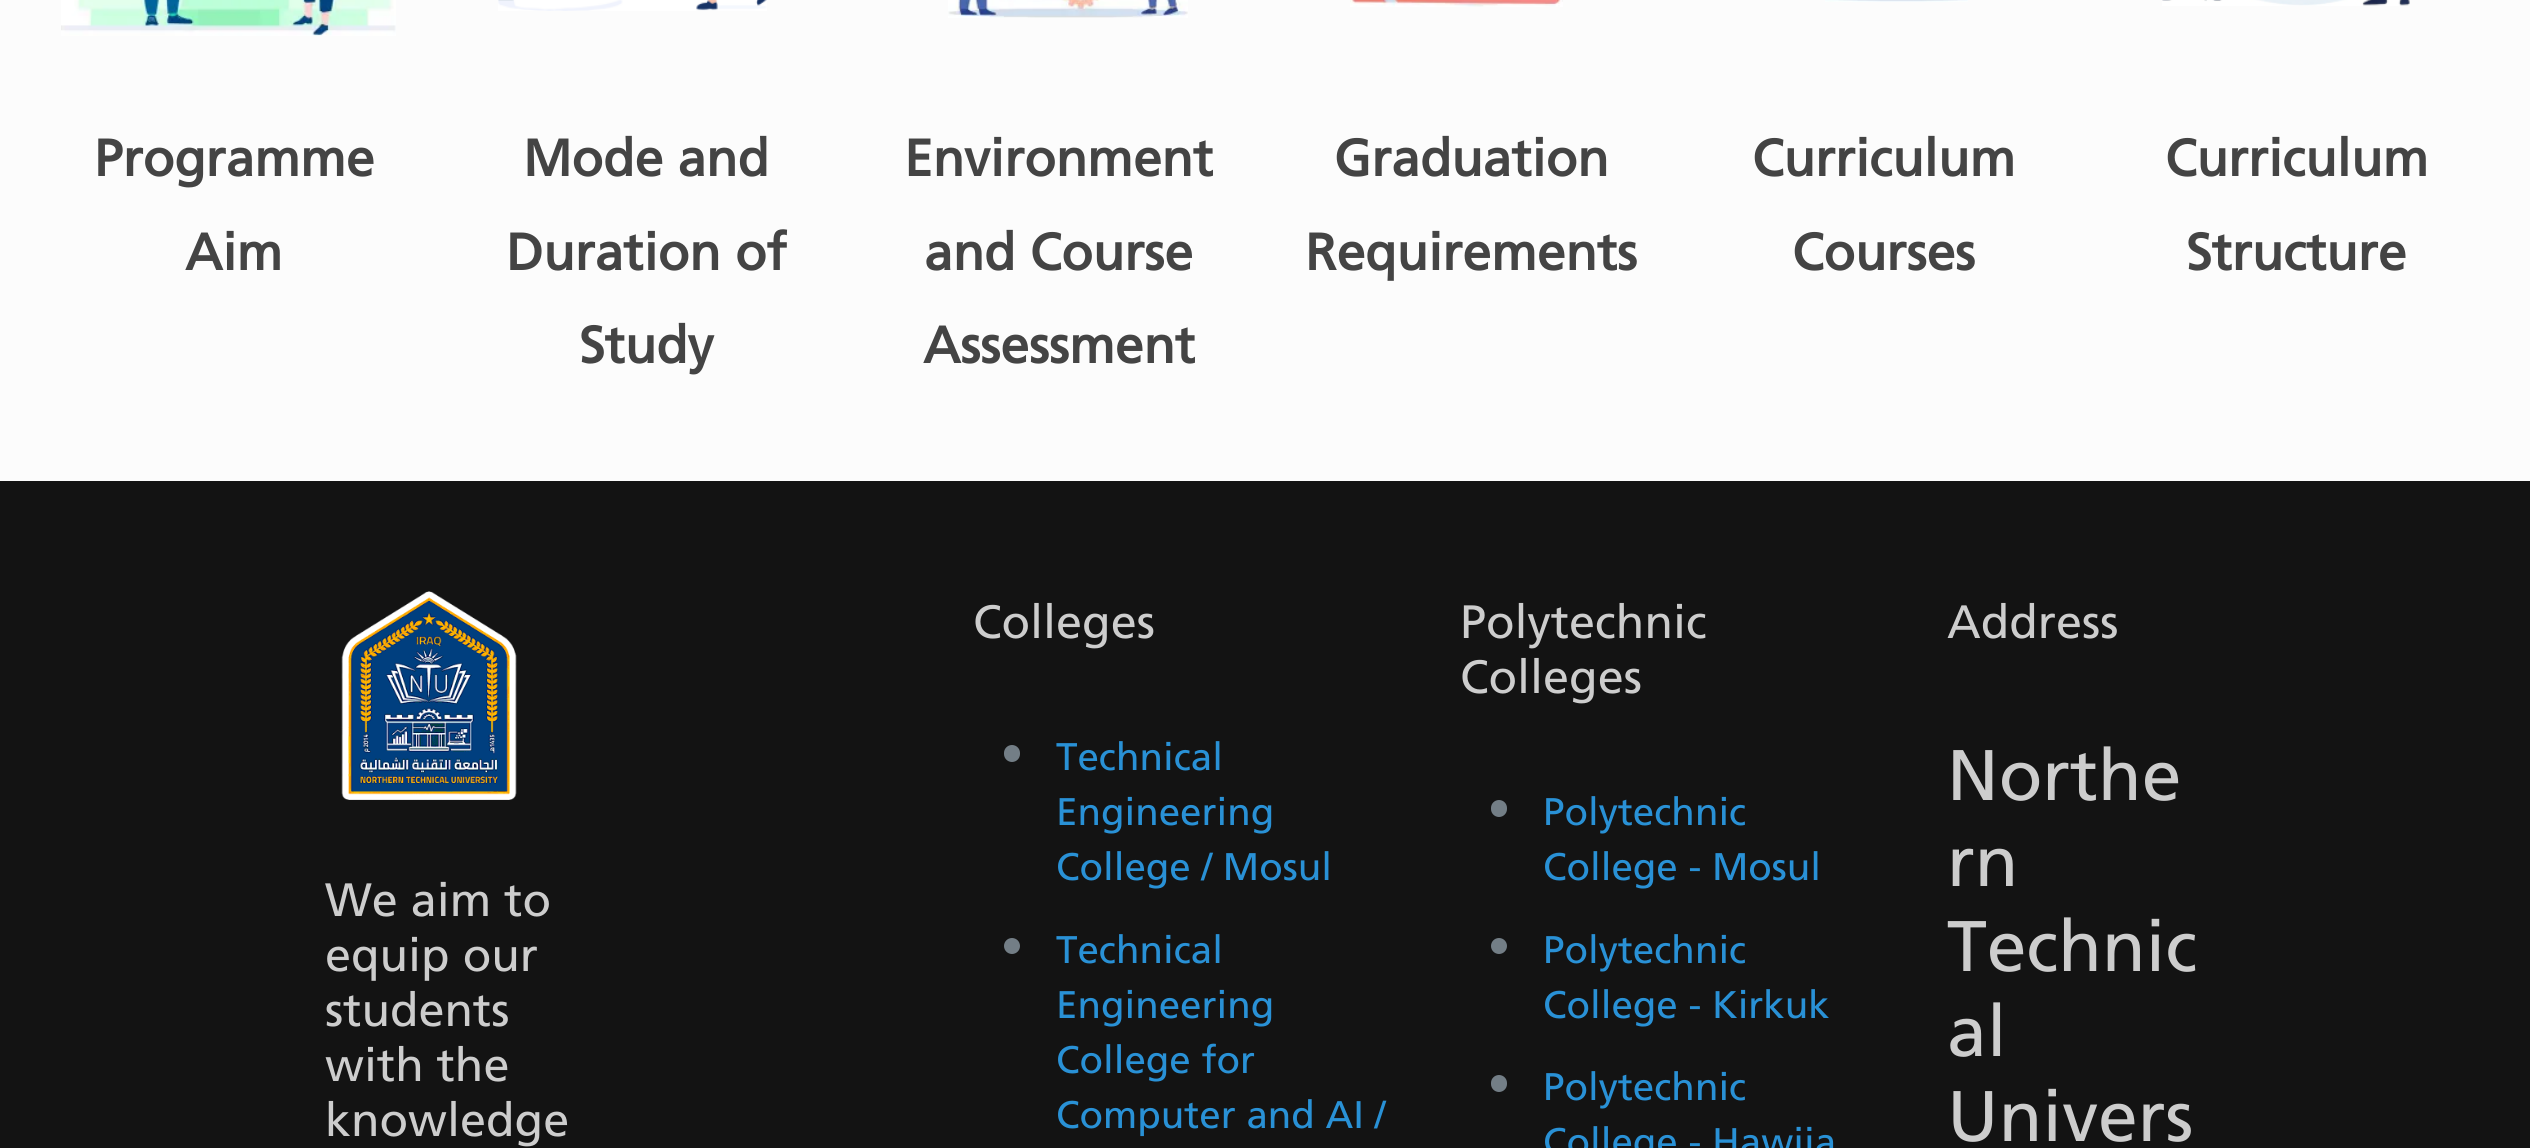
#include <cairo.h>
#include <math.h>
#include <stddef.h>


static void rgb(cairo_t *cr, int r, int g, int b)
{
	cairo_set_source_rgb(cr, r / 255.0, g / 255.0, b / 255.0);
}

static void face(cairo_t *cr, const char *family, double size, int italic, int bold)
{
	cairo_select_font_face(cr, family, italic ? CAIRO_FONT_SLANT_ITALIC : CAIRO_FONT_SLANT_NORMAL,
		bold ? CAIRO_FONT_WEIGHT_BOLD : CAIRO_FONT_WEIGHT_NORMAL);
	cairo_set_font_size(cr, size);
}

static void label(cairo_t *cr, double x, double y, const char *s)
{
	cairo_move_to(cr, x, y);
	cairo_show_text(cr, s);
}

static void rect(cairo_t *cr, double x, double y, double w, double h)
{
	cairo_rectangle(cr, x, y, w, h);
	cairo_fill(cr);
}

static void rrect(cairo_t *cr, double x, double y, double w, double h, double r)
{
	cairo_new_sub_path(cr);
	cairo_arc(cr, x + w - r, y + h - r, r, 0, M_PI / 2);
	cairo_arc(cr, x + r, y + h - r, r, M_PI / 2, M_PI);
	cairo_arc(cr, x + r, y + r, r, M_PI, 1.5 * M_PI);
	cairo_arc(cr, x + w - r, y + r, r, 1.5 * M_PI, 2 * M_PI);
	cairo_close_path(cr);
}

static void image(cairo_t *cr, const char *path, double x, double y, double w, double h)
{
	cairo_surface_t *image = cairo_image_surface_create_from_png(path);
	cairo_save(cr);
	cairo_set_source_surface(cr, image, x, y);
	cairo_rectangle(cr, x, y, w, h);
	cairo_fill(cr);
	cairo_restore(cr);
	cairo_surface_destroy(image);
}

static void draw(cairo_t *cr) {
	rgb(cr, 252, 252, 252);
	cairo_paint(cr);
	image(cr, "image0.png", 61, 0, 335, 36);
	face(cr, "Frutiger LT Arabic", 51.5, 0, 1);
	rgb(cr, 68, 68, 68);
	label(cr, 94, 176, "Programme");
	label(cr, 185, 270, "Aim");
	image(cr, "image1.png", 498, 0, 269, 11);
	label(cr, 523, 176, "Mode and");
	label(cr, 506, 270, "Duration of");
	label(cr, 579, 363, "Study");
	image(cr, "image2.png", 948, 0, 240, 18);
	label(cr, 904, 176, "Environment");
	label(cr, 924, 270, "and Course");
	label(cr, 923, 363, "Assessment");
	image(cr, "image3.png", 1350, 0, 213, 7);
	label(cr, 1334, 176, "Graduation");
	label(cr, 1305, 270, "Requirements");
	image(cr, "image4.png", 1825, 0, 143, 2);
	label(cr, 1752, 176, "Curriculum");
	label(cr, 1792, 270, "Courses");
	image(cr, "image5.png", 2162, 0, 248, 6);
	label(cr, 2165, 176, "Curriculum");
	label(cr, 2186, 270, "Structure");
	rgb(cr, 19, 19, 19);
	rect(cr, 0, 481, 2530, 667);
	image(cr, "image6.png", 341, 591, 176, 209);
	face(cr, "Frutiger LT Arabic", 46.75, 0, 0);
	rgb(cr, 205, 205, 205);
	label(cr, 325, 916, "We aim to");
	label(cr, 325, 971, "equip our");
	label(cr, 325, 1026, "students");
	label(cr, 325, 1081, "with the");
	label(cr, 325, 1136, "knowledge");
	label(cr, 973, 638, "Colleges");
	rgb(cr, 115, 126, 134);
	rrect(cr, 1004, 745, 16, 17, 8);
	cairo_fill(cr);
	face(cr, "Frutiger LT Arabic", 38.5, 0, 0);
	rgb(cr, 41, 145, 214);
	label(cr, 1056, 770, "Technical");
	label(cr, 1056, 825, "Engineering");
	label(cr, 1056, 880, "College / Mosul");
	rgb(cr, 115, 126, 134);
	cairo_new_path(cr);
	cairo_arc(cr, 1012, 946, 8, 0, 2 * M_PI);
	cairo_fill(cr);
	rgb(cr, 41, 145, 214);
	label(cr, 1056, 963, "Technical");
	label(cr, 1056, 1018, "Engineering");
	label(cr, 1056, 1073, "College for");
	label(cr, 1056, 1128, "Computer and AI /");
	face(cr, "Frutiger LT Arabic", 46.75, 0, 0);
	rgb(cr, 205, 205, 205);
	label(cr, 1460, 638, "Polytechnic");
	label(cr, 1460, 693, "Colleges");
	rgb(cr, 115, 126, 134);
	rrect(cr, 1491, 800, 16, 17, 8);
	cairo_fill(cr);
	face(cr, "Frutiger LT Arabic", 38.5, 0, 0);
	rgb(cr, 41, 145, 214);
	label(cr, 1543, 825, "Polytechnic");
	label(cr, 1543, 880, "College - Mosul");
	rgb(cr, 115, 126, 134);
	cairo_new_path(cr);
	cairo_arc(cr, 1499, 946, 8, 0, 2 * M_PI);
	cairo_fill(cr);
	rgb(cr, 41, 145, 214);
	label(cr, 1543, 963, "Polytechnic");
	label(cr, 1543, 1018, "College - Kirkuk");
	rgb(cr, 115, 126, 134);
	rrect(cr, 1491, 1075, 16, 17, 8);
	cairo_fill(cr);
	rgb(cr, 41, 145, 214);
	label(cr, 1543, 1100, "Polytechnic");
	label(cr, 1543, 1155, "College - Hawija");
	face(cr, "Frutiger LT Arabic", 46.75, 0, 0);
	rgb(cr, 205, 205, 205);
	label(cr, 1947, 638, "Address");
	face(cr, "Frutiger LT Arabic", 71.5, 0, 0);
	label(cr, 1947, 800, "Northe");
	label(cr, 1947, 886, "rn");
	label(cr, 1947, 971, "Technic");
	label(cr, 1947, 1056, "al");
	label(cr, 1947, 1141, "Univers");
}

int main(void) {
	cairo_surface_t *surface = cairo_image_surface_create(CAIRO_FORMAT_RGB24, 2530, 1148);
	cairo_t *cr = cairo_create(surface);
	cairo_font_options_t *options = cairo_font_options_create();
	cairo_font_options_set_hint_metrics(options, CAIRO_HINT_METRICS_OFF);
	cairo_font_options_set_hint_style(options, CAIRO_HINT_STYLE_NONE);
	cairo_set_font_options(cr, options);
	cairo_set_miter_limit(cr, 4);
	draw(cr);
	cairo_surface_write_to_png(surface, "render.png");
	cairo_font_options_destroy(options);
	cairo_destroy(cr);
	cairo_surface_destroy(surface);
	return 0;
}
